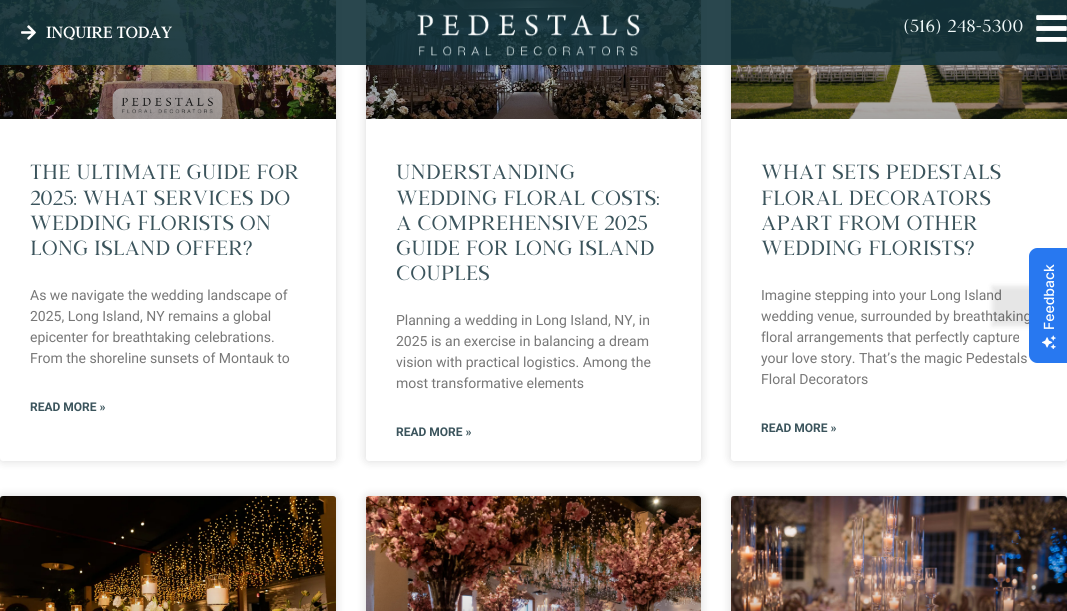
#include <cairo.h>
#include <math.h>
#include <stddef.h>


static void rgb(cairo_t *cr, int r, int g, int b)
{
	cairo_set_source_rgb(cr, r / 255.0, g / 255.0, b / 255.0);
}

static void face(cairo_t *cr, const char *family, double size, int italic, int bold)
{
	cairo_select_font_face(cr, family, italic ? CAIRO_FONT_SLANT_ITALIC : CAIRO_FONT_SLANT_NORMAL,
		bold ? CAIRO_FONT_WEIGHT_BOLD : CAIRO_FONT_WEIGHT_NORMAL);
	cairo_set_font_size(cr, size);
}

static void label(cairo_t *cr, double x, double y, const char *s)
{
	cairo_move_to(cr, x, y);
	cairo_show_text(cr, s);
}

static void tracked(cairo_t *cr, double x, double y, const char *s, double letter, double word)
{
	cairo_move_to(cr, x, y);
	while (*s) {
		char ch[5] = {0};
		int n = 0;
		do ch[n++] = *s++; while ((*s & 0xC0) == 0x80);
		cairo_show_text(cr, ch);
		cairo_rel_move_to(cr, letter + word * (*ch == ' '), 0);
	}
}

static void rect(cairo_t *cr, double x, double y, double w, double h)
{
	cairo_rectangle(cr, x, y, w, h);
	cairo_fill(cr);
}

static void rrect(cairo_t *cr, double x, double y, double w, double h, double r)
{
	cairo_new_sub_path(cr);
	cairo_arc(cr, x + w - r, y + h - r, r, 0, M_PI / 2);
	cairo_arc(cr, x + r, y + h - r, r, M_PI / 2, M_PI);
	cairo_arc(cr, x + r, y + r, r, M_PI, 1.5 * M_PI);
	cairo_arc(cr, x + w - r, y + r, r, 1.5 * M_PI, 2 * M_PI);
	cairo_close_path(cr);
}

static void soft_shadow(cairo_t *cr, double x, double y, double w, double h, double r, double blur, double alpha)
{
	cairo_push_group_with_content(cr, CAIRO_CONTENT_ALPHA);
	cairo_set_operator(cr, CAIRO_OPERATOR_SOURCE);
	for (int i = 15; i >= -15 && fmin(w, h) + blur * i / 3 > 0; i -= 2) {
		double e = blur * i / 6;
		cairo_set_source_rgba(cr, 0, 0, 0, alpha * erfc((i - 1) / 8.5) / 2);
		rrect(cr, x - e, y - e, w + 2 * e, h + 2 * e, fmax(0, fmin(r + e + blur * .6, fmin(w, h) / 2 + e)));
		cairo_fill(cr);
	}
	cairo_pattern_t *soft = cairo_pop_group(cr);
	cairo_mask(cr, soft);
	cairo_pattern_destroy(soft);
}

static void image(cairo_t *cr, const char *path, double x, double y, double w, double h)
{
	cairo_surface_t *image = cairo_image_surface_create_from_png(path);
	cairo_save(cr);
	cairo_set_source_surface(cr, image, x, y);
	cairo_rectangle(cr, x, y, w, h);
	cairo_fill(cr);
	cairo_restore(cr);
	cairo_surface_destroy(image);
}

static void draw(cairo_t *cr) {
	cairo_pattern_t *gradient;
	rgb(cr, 255, 255, 255);
	cairo_paint(cr);
	rgb(cr, 0, 0, 0);
	soft_shadow(cr, 0, -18, 336, 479, 3, 5, 0.15);
	rgb(cr, 255, 255, 255);
	rrect(cr, 0, -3, 336, 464, 3);
	cairo_fill(cr);
	image(cr, "image3.png", 0, 0, 336, 119);
	rgb(cr, 0, 0, 0);
	soft_shadow(cr, 366, -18, 335, 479, 3, 5, 0.15);
	rgb(cr, 255, 255, 255);
	rrect(cr, 366, -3, 335, 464, 3);
	cairo_fill(cr);
	image(cr, "image4.png", 366, 0, 335, 119);
	rgb(cr, 0, 0, 0);
	soft_shadow(cr, 731, -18, 336, 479, 3, 5, 0.15);
	rgb(cr, 255, 255, 255);
	rrect(cr, 731, -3, 336, 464, 3);
	cairo_fill(cr);
	image(cr, "image5.png", 731, 0, 336, 119);
	cairo_set_source_rgba(cr, 0.078, 0.2, 0.231, 0.9);
	rect(cr, 0, 0, 1067, 65);
	image(cr, "image0.png", 21, 25, 15, 15);
	face(cr, "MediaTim", 16, 0, 1);
	rgb(cr, 255, 255, 255);
	label(cr, 46, 38, "Inquire Today");
	image(cr, "image1.png", 417, 14, 223, 42);
	face(cr, "MediaTim", 18, 0, 0);
	rgb(cr, 238, 247, 248);
	tracked(cr, 904, 32, "(516) 248-5300", 0.75, 0);
	image(cr, "image2.png", 1036, 15, 31, 27);
	face(cr, "MediaTim", 21, 0, 0);
	rgb(cr, 59, 84, 92);
	label(cr, 30, 179, "The Ultimate Guide for");
	label(cr, 30, 205, "2025: What Services Do");
	label(cr, 30, 230, "Wedding Florists on");
	label(cr, 30, 255, "Long Island Offer?");
	face(cr, "Roboto", 14, 0, 0);
	rgb(cr, 119, 119, 119);
	label(cr, 30, 300, "As we navigate the wedding landscape of");
	label(cr, 30, 321, "2025, Long Island, NY remains a global");
	label(cr, 30, 342, "epicenter for breathtaking celebrations.");
	label(cr, 30, 363, "From the shoreline sunsets of Montauk to");
	face(cr, "Roboto", 12, 0, 1);
	rgb(cr, 59, 84, 92);
	label(cr, 30, 411, "READ MORE »");
	face(cr, "MediaTim", 21, 0, 0);
	label(cr, 396, 179, "Understanding");
	label(cr, 396, 205, "Wedding Floral Costs:");
	label(cr, 396, 230, "A Comprehensive 2025");
	label(cr, 396, 255, "Guide for Long Island");
	label(cr, 396, 280, "Couples");
	face(cr, "Roboto", 14, 0, 0);
	rgb(cr, 119, 119, 119);
	label(cr, 396, 325, "Planning a wedding in Long Island, NY, in");
	label(cr, 396, 346, "2025 is an exercise in balancing a dream");
	label(cr, 396, 367, "vision with practical logistics. Among the");
	label(cr, 396, 388, "most transformative elements");
	face(cr, "Roboto", 12, 0, 1);
	rgb(cr, 59, 84, 92);
	label(cr, 396, 436, "READ MORE »");
	face(cr, "MediaTim", 21, 0, 0);
	label(cr, 761, 179, "What Sets Pedestals");
	label(cr, 761, 205, "Floral Decorators");
	label(cr, 761, 230, "Apart from Other");
	label(cr, 761, 255, "Wedding Florists?");
	face(cr, "Roboto", 14, 0, 0);
	rgb(cr, 119, 119, 119);
	label(cr, 761, 300, "Imagine stepping into your Long Island");
	label(cr, 761, 321, "wedding venue, surrounded by breathtaking");
	label(cr, 761, 342, "floral arrangements that perfectly capture");
	label(cr, 761, 363, "your love story. That’s the magic Pedestals");
	label(cr, 761, 384, "Floral Decorators");
	face(cr, "Roboto", 12, 0, 1);
	rgb(cr, 59, 84, 92);
	label(cr, 761, 432, "READ MORE »");
	rgb(cr, 0, 0, 0);
	soft_shadow(cr, 0, 496, 336, 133, 3, 5, 0.15);
	image(cr, "image6.png", 0, 496, 336, 115);
	gradient = cairo_pattern_create_linear(168, 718, 168, 496);
	cairo_pattern_add_color_stop_rgba(gradient, 0, 0, 0, 0, 0.35);
	cairo_pattern_add_color_stop_rgba(gradient, 0.75, 0, 0, 0, 0);
	cairo_set_source(cr, gradient);
	cairo_pattern_destroy(gradient);
	rect(cr, 0, 562, 336, 49);
	rgb(cr, 0, 0, 0);
	soft_shadow(cr, 366, 496, 335, 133, 3, 5, 0.15);
	image(cr, "image7.png", 366, 496, 335, 115);
	gradient = cairo_pattern_create_linear(534, 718, 534, 496);
	cairo_pattern_add_color_stop_rgba(gradient, 0, 0, 0, 0, 0.35);
	cairo_pattern_add_color_stop_rgba(gradient, 0.75, 0, 0, 0, 0);
	cairo_set_source(cr, gradient);
	cairo_pattern_destroy(gradient);
	rect(cr, 366, 562, 335, 49);
	rgb(cr, 0, 0, 0);
	soft_shadow(cr, 731, 496, 336, 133, 3, 5, 0.15);
	image(cr, "image8.png", 731, 496, 336, 115);
	gradient = cairo_pattern_create_linear(899, 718, 899, 496);
	cairo_pattern_add_color_stop_rgba(gradient, 0, 0, 0, 0, 0.35);
	cairo_pattern_add_color_stop_rgba(gradient, 0.75, 0, 0, 0, 0);
	cairo_set_source(cr, gradient);
	cairo_pattern_destroy(gradient);
	rect(cr, 731, 562, 336, 49);
	rgb(cr, 0, 0, 0);
	soft_shadow(cr, 992, 286, 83, 40, 0, 2.5, 0.1);
	rgb(cr, 40, 120, 240);
	cairo_new_path(cr);
	cairo_move_to(cr, 1029, 355);
	cairo_line_to(cr, 1029, 256);
	cairo_curve_to(cr, 1029, 252, 1033, 248, 1037, 248);
	cairo_line_to(cr, 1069, 248);
	cairo_line_to(cr, 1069, 363);
	cairo_line_to(cr, 1037, 363);
	cairo_curve_to(cr, 1033, 363, 1029, 359, 1029, 355);
	cairo_close_path(cr);
	cairo_fill(cr);
	face(cr, "Inter Medium", 14, 0, 0);
	rgb(cr, 255, 255, 255);
	cairo_save(cr);
	cairo_translate(cr, 1054, 330);
	cairo_rotate(cr, -90 * M_PI / 180);
	label(cr, 0, 0, "Feedback");
	cairo_restore(cr);
	image(cr, "image9.png", 1042, 335, 14, 14);
}

int main(void) {
	cairo_surface_t *surface = cairo_image_surface_create(CAIRO_FORMAT_RGB24, 1067, 611);
	cairo_t *cr = cairo_create(surface);
	cairo_font_options_t *options = cairo_font_options_create();
	cairo_font_options_set_hint_metrics(options, CAIRO_HINT_METRICS_OFF);
	cairo_font_options_set_hint_style(options, CAIRO_HINT_STYLE_NONE);
	cairo_set_font_options(cr, options);
	cairo_set_miter_limit(cr, 4);
	draw(cr);
	cairo_surface_write_to_png(surface, "render.png");
	cairo_font_options_destroy(options);
	cairo_destroy(cr);
	cairo_surface_destroy(surface);
	return 0;
}
